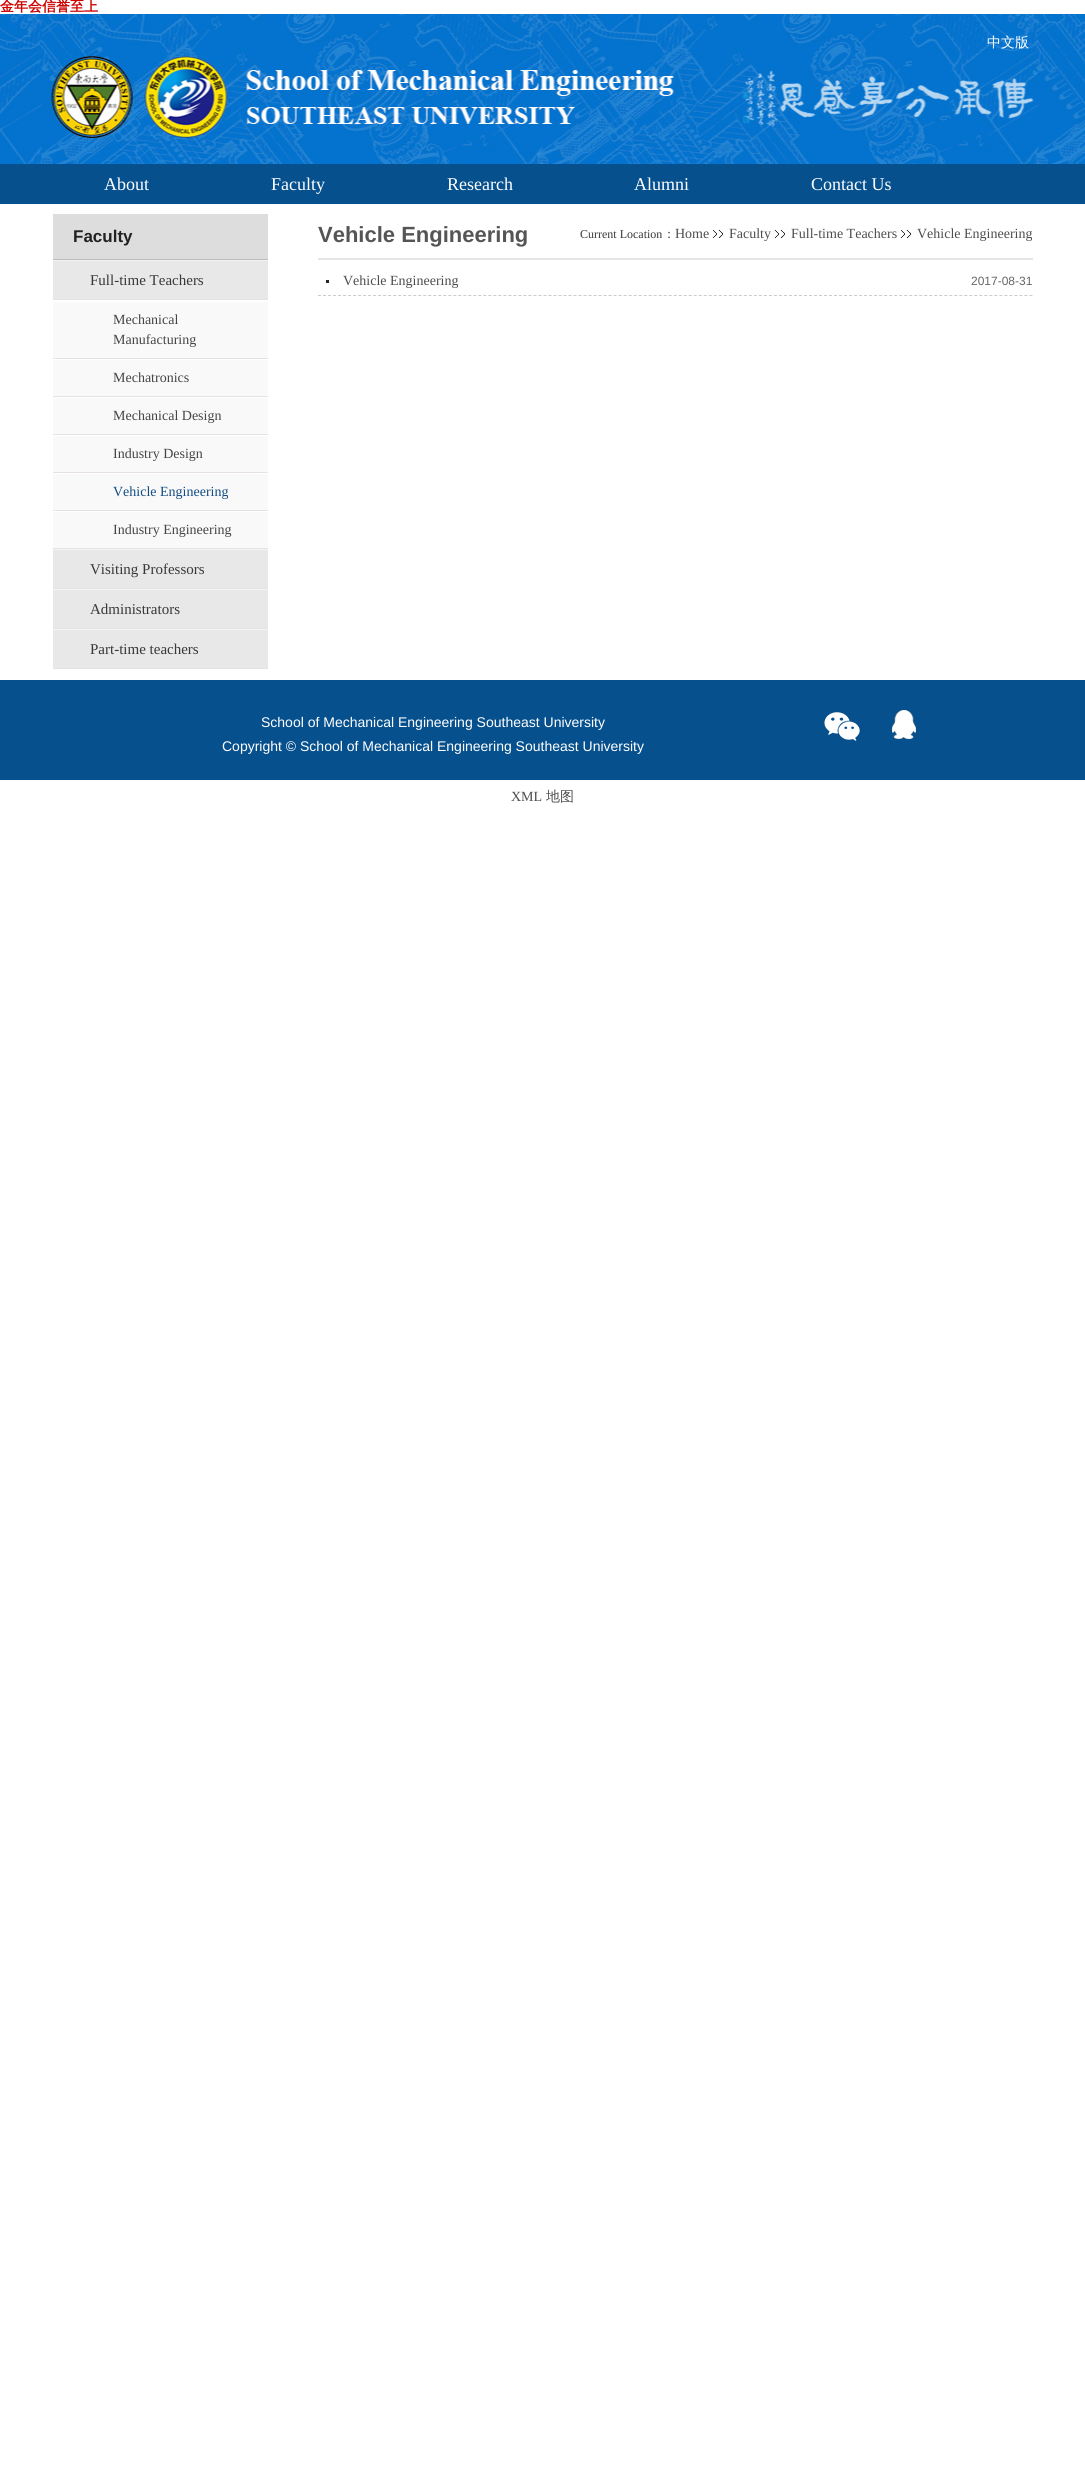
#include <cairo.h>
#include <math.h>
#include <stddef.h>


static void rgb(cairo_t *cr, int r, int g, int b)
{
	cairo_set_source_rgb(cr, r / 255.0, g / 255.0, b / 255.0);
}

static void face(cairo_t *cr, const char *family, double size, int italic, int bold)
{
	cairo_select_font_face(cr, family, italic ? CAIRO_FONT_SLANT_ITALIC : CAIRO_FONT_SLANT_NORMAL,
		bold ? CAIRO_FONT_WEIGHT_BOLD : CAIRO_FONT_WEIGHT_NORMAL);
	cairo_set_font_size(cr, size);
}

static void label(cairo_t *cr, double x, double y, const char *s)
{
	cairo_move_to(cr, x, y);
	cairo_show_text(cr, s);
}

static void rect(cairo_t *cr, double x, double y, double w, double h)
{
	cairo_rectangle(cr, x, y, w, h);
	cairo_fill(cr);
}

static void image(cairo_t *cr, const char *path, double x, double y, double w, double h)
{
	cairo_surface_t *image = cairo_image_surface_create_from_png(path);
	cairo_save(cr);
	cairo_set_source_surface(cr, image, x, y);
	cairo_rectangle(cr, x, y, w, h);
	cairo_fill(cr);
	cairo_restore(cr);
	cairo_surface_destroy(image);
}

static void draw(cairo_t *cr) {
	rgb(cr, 255, 255, 255);
	cairo_paint(cr);
	face(cr, "WenQuanYi Zen Hei", 14, 0, 1);
	rgb(cr, 205, 2, 0);
	label(cr, 0, 11, "金年会信誉至上");
	image(cr, "image0.png", 0, 14, 1085, 150);
	face(cr, "WenQuanYi Zen Hei Medium", 14, 0, 0);
	rgb(cr, 255, 255, 255);
	label(cr, 987, 47, "中文版");
	rgb(cr, 6, 80, 141);
	rect(cr, 0, 164, 1085, 40);
	face(cr, "Liberation Serif", 18, 0, 0);
	rgb(cr, 255, 255, 255);
	label(cr, 104, 190, "About");
	label(cr, 271, 190, "Faculty");
	label(cr, 447, 190, "Research");
	label(cr, 634, 190, "Alumni");
	label(cr, 811, 190, "Contact Us");
	rgb(cr, 221, 221, 221);
	rect(cr, 53, 214, 215, 45);
	face(cr, "Liberation Sans", 17, 0, 1);
	rgb(cr, 34, 34, 34);
	label(cr, 73, 242, "Faculty");
	rgb(cr, 187, 187, 187);
	rect(cr, 53, 259, 215, 1);
	rgb(cr, 232, 232, 232);
	rect(cr, 53, 261, 215, 38);
	rgb(cr, 244, 244, 244);
	rect(cr, 53, 260, 215, 1);
	rgb(cr, 227, 227, 227);
	rect(cr, 53, 299, 215, 1);
	face(cr, "Liberation Serif", 15, 0, 0);
	rgb(cr, 56, 56, 56);
	label(cr, 90, 285, "Full-time Teachers");
	rgb(cr, 249, 249, 249);
	rect(cr, 53, 302, 215, 56);
	rgb(cr, 232, 225, 225);
	rect(cr, 53, 358, 215, 1);
	face(cr, "Liberation Serif", 14, 0, 0);
	rgb(cr, 69, 69, 69);
	label(cr, 113, 324, "Mechanical");
	label(cr, 113, 344, "Manufacturing");
	rgb(cr, 249, 249, 249);
	rect(cr, 53, 360, 215, 36);
	rgb(cr, 232, 225, 225);
	rect(cr, 53, 396, 215, 1);
	rgb(cr, 69, 69, 69);
	label(cr, 113, 382, "Mechatronics");
	rgb(cr, 249, 249, 249);
	rect(cr, 53, 398, 215, 36);
	rgb(cr, 232, 225, 225);
	rect(cr, 53, 434, 215, 1);
	rgb(cr, 69, 69, 69);
	label(cr, 113, 420, "Mechanical Design");
	rgb(cr, 249, 249, 249);
	rect(cr, 53, 436, 215, 36);
	rgb(cr, 232, 225, 225);
	rect(cr, 53, 472, 215, 1);
	rgb(cr, 69, 69, 69);
	label(cr, 113, 458, "Industry Design");
	rgb(cr, 249, 249, 249);
	rect(cr, 53, 474, 215, 36);
	rgb(cr, 232, 225, 225);
	rect(cr, 53, 510, 215, 1);
	rgb(cr, 18, 77, 131);
	label(cr, 113, 496, "Vehicle Engineering");
	rgb(cr, 249, 249, 249);
	rect(cr, 53, 512, 215, 36);
	rgb(cr, 232, 225, 225);
	rect(cr, 53, 548, 215, 1);
	rgb(cr, 69, 69, 69);
	label(cr, 113, 534, "Industry Engineering");
	rgb(cr, 232, 232, 232);
	rect(cr, 53, 550, 215, 38);
	rgb(cr, 244, 244, 244);
	rect(cr, 53, 549, 215, 1);
	rgb(cr, 227, 227, 227);
	rect(cr, 53, 588, 215, 1);
	face(cr, "Liberation Serif", 15, 0, 0);
	rgb(cr, 56, 56, 56);
	label(cr, 90, 574, "Visiting Professors");
	rgb(cr, 232, 232, 232);
	rect(cr, 53, 590, 215, 38);
	rgb(cr, 244, 244, 244);
	rect(cr, 53, 589, 215, 1);
	rgb(cr, 227, 227, 227);
	rect(cr, 53, 628, 215, 1);
	rgb(cr, 56, 56, 56);
	label(cr, 90, 614, "Administrators");
	rgb(cr, 232, 232, 232);
	rect(cr, 53, 630, 215, 38);
	rgb(cr, 244, 244, 244);
	rect(cr, 53, 629, 215, 1);
	rgb(cr, 227, 227, 227);
	rect(cr, 53, 668, 215, 1);
	rgb(cr, 56, 56, 56);
	label(cr, 90, 654, "Part-time teachers");
	rgb(cr, 229, 229, 229);
	rect(cr, 318, 258, 715, 2);
	face(cr, "Liberation Sans", 22, 0, 1);
	rgb(cr, 85, 85, 85);
	label(cr, 318, 242, "Vehicle Engineering");
	face(cr, "Liberation Serif", 12, 0, 0);
	rgb(cr, 56, 56, 56);
	label(cr, 580, 238, "Current Location");
	face(cr, "WenQuanYi Zen Hei Medium", 12, 0, 0);
	label(cr, 663, 238, "：");
	face(cr, "Liberation Serif", 14, 0, 0);
	rgb(cr, 77, 77, 77);
	label(cr, 675, 238, "Home");
	image(cr, "image1.png", 712, 229, 12, 10);
	label(cr, 729, 238, "Faculty");
	image(cr, "image1.png", 774, 229, 12, 10);
	label(cr, 791, 238, "Full-time Teachers");
	image(cr, "image1.png", 900, 229, 12, 10);
	label(cr, 917, 238, "Vehicle Engineering");
	cairo_new_path(cr);
	cairo_move_to(cr, 318, 295.5);
	cairo_line_to(cr, 1033, 295.5);
	rgb(cr, 204, 204, 204);
	cairo_set_line_width(cr, 1);
	cairo_set_dash(cr, (double[]){3, 2.01}, 2, 0);
	cairo_stroke(cr);
	rgb(cr, 36, 38, 40);
	rect(cr, 326, 280, 3, 3);
	rgb(cr, 77, 77, 77);
	label(cr, 343, 285, "Vehicle Engineering");
	face(cr, "Liberation Sans", 12, 0, 0);
	rgb(cr, 102, 102, 102);
	label(cr, 971, 285, "2017-08-31");
	rgb(cr, 6, 80, 141);
	rect(cr, 0, 680, 1085, 100);
	face(cr, "Liberation Sans", 14, 0, 0);
	rgb(cr, 255, 255, 255);
	label(cr, 261, 727, "School of Mechanical Engineering Southeast University");
	label(cr, 222, 751, "Copyright © School of Mechanical Engineering Southeast University");
	image(cr, "image2.png", 824, 712, 36, 29);
	image(cr, "image3.png", 892, 710, 24, 29);
	face(cr, "Liberation Serif", 14, 0, 0);
	rgb(cr, 77, 77, 77);
	label(cr, 511, 801, "XML");
	face(cr, "WenQuanYi Zen Hei Medium", 14, 0, 0);
	label(cr, 546, 801, "地图");
}

int main(void) {
	cairo_surface_t *surface = cairo_image_surface_create(CAIRO_FORMAT_RGB24, 1085, 2479);
	cairo_t *cr = cairo_create(surface);
	cairo_font_options_t *options = cairo_font_options_create();
	cairo_font_options_set_hint_metrics(options, CAIRO_HINT_METRICS_OFF);
	cairo_font_options_set_hint_style(options, CAIRO_HINT_STYLE_NONE);
	cairo_set_font_options(cr, options);
	cairo_set_miter_limit(cr, 4);
	draw(cr);
	cairo_surface_write_to_png(surface, "render.png");
	cairo_font_options_destroy(options);
	cairo_destroy(cr);
	cairo_surface_destroy(surface);
	return 0;
}
